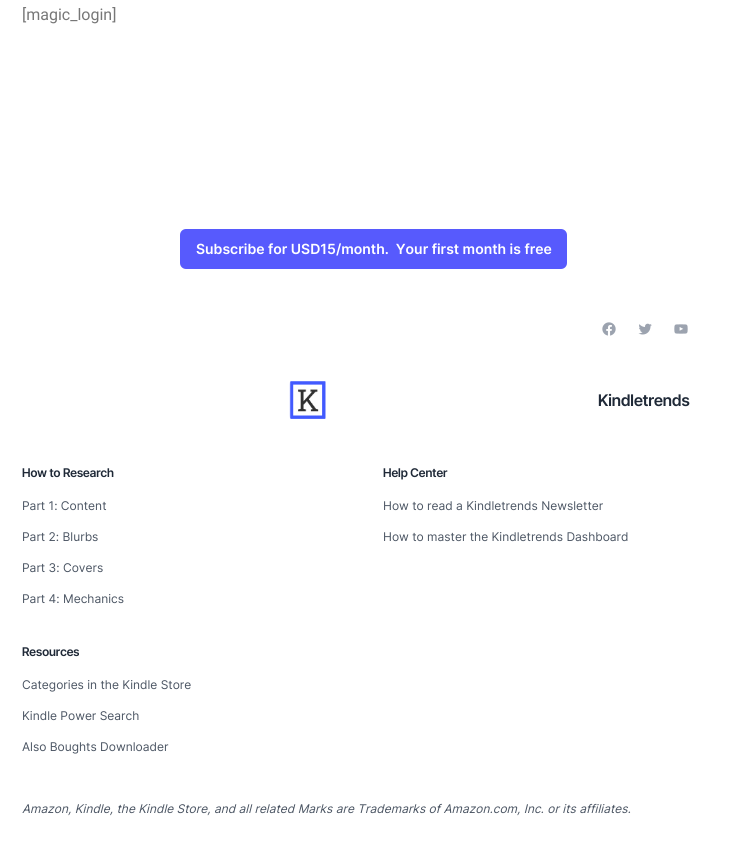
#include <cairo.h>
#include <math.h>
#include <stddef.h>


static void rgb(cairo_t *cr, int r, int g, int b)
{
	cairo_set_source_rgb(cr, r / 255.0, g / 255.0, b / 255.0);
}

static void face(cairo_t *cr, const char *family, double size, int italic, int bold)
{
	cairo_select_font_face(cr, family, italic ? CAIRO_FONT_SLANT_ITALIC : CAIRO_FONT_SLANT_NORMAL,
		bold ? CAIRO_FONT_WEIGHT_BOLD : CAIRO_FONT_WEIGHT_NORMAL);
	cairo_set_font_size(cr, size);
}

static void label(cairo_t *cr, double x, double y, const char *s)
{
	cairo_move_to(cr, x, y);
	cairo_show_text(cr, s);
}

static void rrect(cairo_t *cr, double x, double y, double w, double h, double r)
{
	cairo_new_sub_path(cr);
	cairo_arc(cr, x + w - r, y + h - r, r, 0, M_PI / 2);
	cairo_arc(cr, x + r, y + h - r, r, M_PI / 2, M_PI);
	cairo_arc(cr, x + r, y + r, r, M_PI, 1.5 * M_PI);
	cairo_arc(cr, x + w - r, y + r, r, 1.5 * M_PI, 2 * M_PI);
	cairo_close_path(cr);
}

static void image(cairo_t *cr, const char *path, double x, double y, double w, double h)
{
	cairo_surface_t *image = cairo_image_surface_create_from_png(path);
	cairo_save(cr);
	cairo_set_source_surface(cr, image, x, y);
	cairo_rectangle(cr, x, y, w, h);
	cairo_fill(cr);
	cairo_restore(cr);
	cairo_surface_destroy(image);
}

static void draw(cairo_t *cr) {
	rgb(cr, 255, 255, 255);
	cairo_paint(cr);
	face(cr, "Roboto", 16, 0, 0);
	rgb(cr, 119, 119, 119);
	label(cr, 22, 20, "[magic_login]");
	rgb(cr, 87, 90, 253);
	rrect(cr, 180, 229, 387, 40, 6);
	cairo_fill(cr);
	face(cr, "Inter SemiBold", 14, 0, 0);
	rgb(cr, 255, 255, 255);
	label(cr, 196, 254, "Subscribe for USD15/month.  Your first month is free");
	image(cr, "image0.png", 602, 322, 14, 14);
	image(cr, "image1.png", 638, 323, 14, 12);
	image(cr, "image2.png", 674, 324, 14, 10);
	image(cr, "image3.png", 289, 381, 37, 38);
	face(cr, "Inter Tight SemiBold", 16, 0, 0);
	rgb(cr, 31, 41, 55);
	label(cr, 598, 406, "Kindletrends");
	face(cr, "Inter Tight SemiBold", 12, 0, 0);
	label(cr, 22, 477, "How to Research");
	face(cr, "Inter", 12, 0, 0);
	rgb(cr, 75, 85, 99);
	label(cr, 22, 510, "Part 1: Content");
	label(cr, 22, 541, "Part 2: Blurbs");
	label(cr, 22, 572, "Part 3: Covers");
	label(cr, 22, 603, "Part 4: Mechanics");
	face(cr, "Inter Tight SemiBold", 12, 0, 0);
	rgb(cr, 31, 41, 55);
	label(cr, 383, 477, "Help Center");
	face(cr, "Inter", 12, 0, 0);
	rgb(cr, 75, 85, 99);
	label(cr, 383, 510, "How to read a Kindletrends Newsletter");
	label(cr, 383, 541, "How to master the Kindletrends Dashboard");
	face(cr, "Inter Tight SemiBold", 12, 0, 0);
	rgb(cr, 31, 41, 55);
	label(cr, 22, 656, "Resources");
	face(cr, "Inter", 12, 0, 0);
	rgb(cr, 75, 85, 99);
	label(cr, 22, 689, "Categories in the Kindle Store");
	label(cr, 22, 720, "Kindle Power Search");
	label(cr, 22, 751, "Also Boughts Downloader");
	face(cr, "Inter", 12, 1, 0);
	label(cr, 22, 813, "Amazon, Kindle, the Kindle Store, and all related Marks are Trademarks of Amazon.com, Inc. or its affiliates.");
}

int main(void) {
	cairo_surface_t *surface = cairo_image_surface_create(CAIRO_FORMAT_RGB24, 747, 854);
	cairo_t *cr = cairo_create(surface);
	cairo_font_options_t *options = cairo_font_options_create();
	cairo_font_options_set_hint_metrics(options, CAIRO_HINT_METRICS_OFF);
	cairo_font_options_set_hint_style(options, CAIRO_HINT_STYLE_NONE);
	cairo_set_font_options(cr, options);
	cairo_set_miter_limit(cr, 4);
	draw(cr);
	cairo_surface_write_to_png(surface, "render.png");
	cairo_font_options_destroy(options);
	cairo_destroy(cr);
	cairo_surface_destroy(surface);
	return 0;
}
